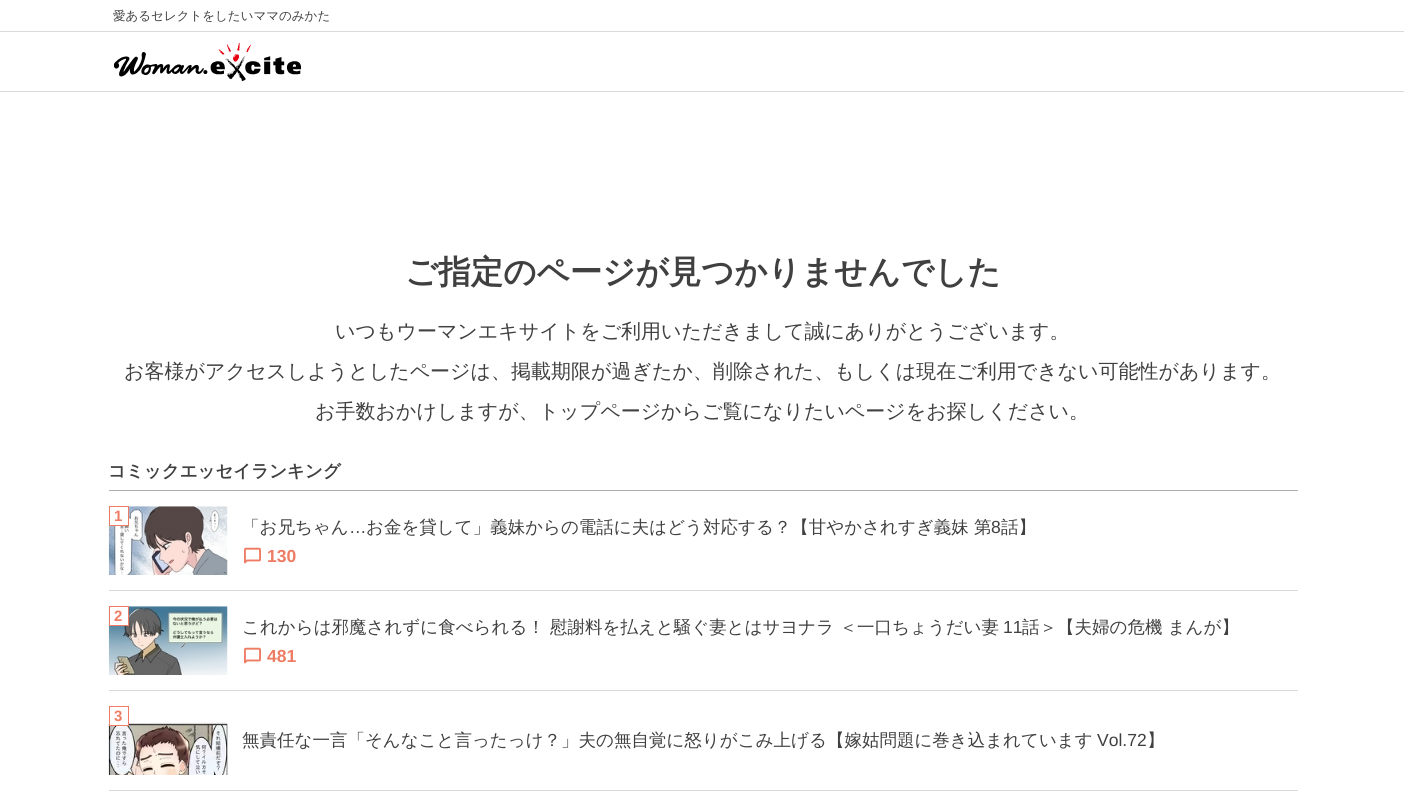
#include <cairo.h>
#include <math.h>
#include <stddef.h>


static void rgb(cairo_t *cr, int r, int g, int b)
{
	cairo_set_source_rgb(cr, r / 255.0, g / 255.0, b / 255.0);
}

static void face(cairo_t *cr, const char *family, double size, int italic, int bold)
{
	cairo_select_font_face(cr, family, italic ? CAIRO_FONT_SLANT_ITALIC : CAIRO_FONT_SLANT_NORMAL,
		bold ? CAIRO_FONT_WEIGHT_BOLD : CAIRO_FONT_WEIGHT_NORMAL);
	cairo_set_font_size(cr, size);
}

static void label(cairo_t *cr, double x, double y, const char *s)
{
	cairo_move_to(cr, x, y);
	cairo_show_text(cr, s);
}

static void rect(cairo_t *cr, double x, double y, double w, double h)
{
	cairo_rectangle(cr, x, y, w, h);
	cairo_fill(cr);
}

static void image(cairo_t *cr, const char *path, double x, double y, double w, double h)
{
	cairo_surface_t *image = cairo_image_surface_create_from_png(path);
	cairo_save(cr);
	cairo_set_source_surface(cr, image, x, y);
	cairo_rectangle(cr, x, y, w, h);
	cairo_fill(cr);
	cairo_restore(cr);
	cairo_surface_destroy(image);
}

static void draw(cairo_t *cr) {
	rgb(cr, 255, 255, 255);
	cairo_paint(cr);
	rgb(cr, 218, 218, 218);
	rect(cr, 0, 91, 1404, 1);
	rect(cr, 0, 31, 1404, 1);
	face(cr, "WenQuanYi Zen Hei Medium", 12.5, 0, 0);
	rgb(cr, 64, 64, 64);
	label(cr, 113, 20, "愛あるセレクトをしたいママのみかた");
	image(cr, "image0.png", 114, 43, 187, 38);
	face(cr, "WenQuanYi Zen Hei", 32.5, 0, 1);
	label(cr, 405, 283, "ご指定のページが見つかりませんでした");
	face(cr, "WenQuanYi Zen Hei Medium", 20, 0, 0);
	label(cr, 335, 338, "いつもウーマンエキサイトをご利用いただきまして誠にありがとうございます。");
	label(cr, 124, 378, "お客様がアクセスしようとしたページは、掲載期限が過ぎたか、削除された、もしくは現在ご利用できない可能性があります。");
	label(cr, 315, 418, "お手数おかけしますが、トップページからご覧になりたいページをお探しください。");
	rgb(cr, 174, 174, 174);
	rect(cr, 109, 490, 1189, 1);
	face(cr, "WenQuanYi Zen Hei", 17.5, 0, 1);
	rgb(cr, 64, 64, 64);
	label(cr, 108, 477, "コミックエッセイランキング");
	image(cr, "image1.png", 108, 506, 120, 69);
	rgb(cr, 255, 255, 255);
	cairo_rectangle(cr, 109.5, 506.5, 19, 19);
	cairo_fill_preserve(cr);
	rgb(cr, 238, 124, 101);
	cairo_set_line_width(cr, 1);
	cairo_stroke(cr);
	face(cr, "Liberation Sans", 15, 0, 1);
	label(cr, 114, 521, "1");
	face(cr, "WenQuanYi Zen Hei Medium", 17.5, 0, 0);
	rgb(cr, 64, 64, 64);
	label(cr, 242, 533, "「お兄ちゃん");
	face(cr, "Liberation Sans", 17.5, 0, 0);
	label(cr, 349, 533, "…");
	face(cr, "WenQuanYi Zen Hei Medium", 17.5, 0, 0);
	label(cr, 366, 533, "お金を貸して」義妹からの電話に夫はどう対応する？【甘やかされすぎ義妹 第");
	face(cr, "Liberation Sans", 17.5, 0, 0);
	label(cr, 991, 533, "8");
	face(cr, "WenQuanYi Zen Hei Medium", 17.5, 0, 0);
	label(cr, 1001, 533, "話】");
	image(cr, "image2.png", 244, 547, 17, 17);
	face(cr, "Liberation Sans", 17.5, 0, 1);
	rgb(cr, 238, 124, 101);
	label(cr, 267, 562, "130");
	rgb(cr, 218, 218, 218);
	rect(cr, 109, 590, 1189, 1);
	image(cr, "image3.png", 108, 606, 120, 69);
	rgb(cr, 255, 255, 255);
	cairo_rectangle(cr, 109.5, 606.5, 19, 19);
	cairo_fill_preserve(cr);
	rgb(cr, 238, 124, 101);
	cairo_stroke(cr);
	face(cr, "Liberation Sans", 15, 0, 1);
	label(cr, 114, 621, "2");
	face(cr, "WenQuanYi Zen Hei Medium", 17.5, 0, 0);
	rgb(cr, 64, 64, 64);
	label(cr, 242, 633, "これからは邪魔されずに食べられる！ 慰謝料を払えと騒ぐ妻とはサヨナラ ＜一口ちょうだい妻");
	face(cr, "Liberation Sans", 17.5, 0, 0);
	label(cr, 1003, 633, "11");
	face(cr, "WenQuanYi Zen Hei Medium", 17.5, 0, 0);
	label(cr, 1022, 633, "話＞【夫婦の危機 まんが】");
	image(cr, "image2.png", 244, 647, 17, 17);
	face(cr, "Liberation Sans", 17.5, 0, 1);
	rgb(cr, 238, 124, 101);
	label(cr, 267, 662, "481");
	rgb(cr, 218, 218, 218);
	rect(cr, 109, 690, 1189, 1);
	image(cr, "image4.png", 108, 722, 120, 53);
	rgb(cr, 255, 255, 255);
	rect(cr, 110, 722, 18, 3);
	cairo_rectangle(cr, 109.5, 706.5, 19, 19);
	rgb(cr, 238, 124, 101);
	cairo_stroke(cr);
	face(cr, "Liberation Sans", 15, 0, 1);
	label(cr, 114, 721, "3");
	face(cr, "WenQuanYi Zen Hei Medium", 17.5, 0, 0);
	rgb(cr, 64, 64, 64);
	label(cr, 242, 746, "無責任な一言「そんなこと言ったっけ？」夫の無自覚に怒りがこみ上げる【嫁姑問題に巻き込まれています");
	face(cr, "Liberation Sans", 17.5, 0, 0);
	label(cr, 1097, 746, "Vol.72");
	face(cr, "WenQuanYi Zen Hei Medium", 17.5, 0, 0);
	label(cr, 1147, 746, "】");
	rgb(cr, 218, 218, 218);
	rect(cr, 109, 790, 1189, 1);
}

int main(void) {
	cairo_surface_t *surface = cairo_image_surface_create(CAIRO_FORMAT_RGB24, 1404, 805);
	cairo_t *cr = cairo_create(surface);
	cairo_font_options_t *options = cairo_font_options_create();
	cairo_font_options_set_hint_metrics(options, CAIRO_HINT_METRICS_OFF);
	cairo_font_options_set_hint_style(options, CAIRO_HINT_STYLE_NONE);
	cairo_set_font_options(cr, options);
	cairo_set_miter_limit(cr, 4);
	draw(cr);
	cairo_surface_write_to_png(surface, "render.png");
	cairo_font_options_destroy(options);
	cairo_destroy(cr);
	cairo_surface_destroy(surface);
	return 0;
}
